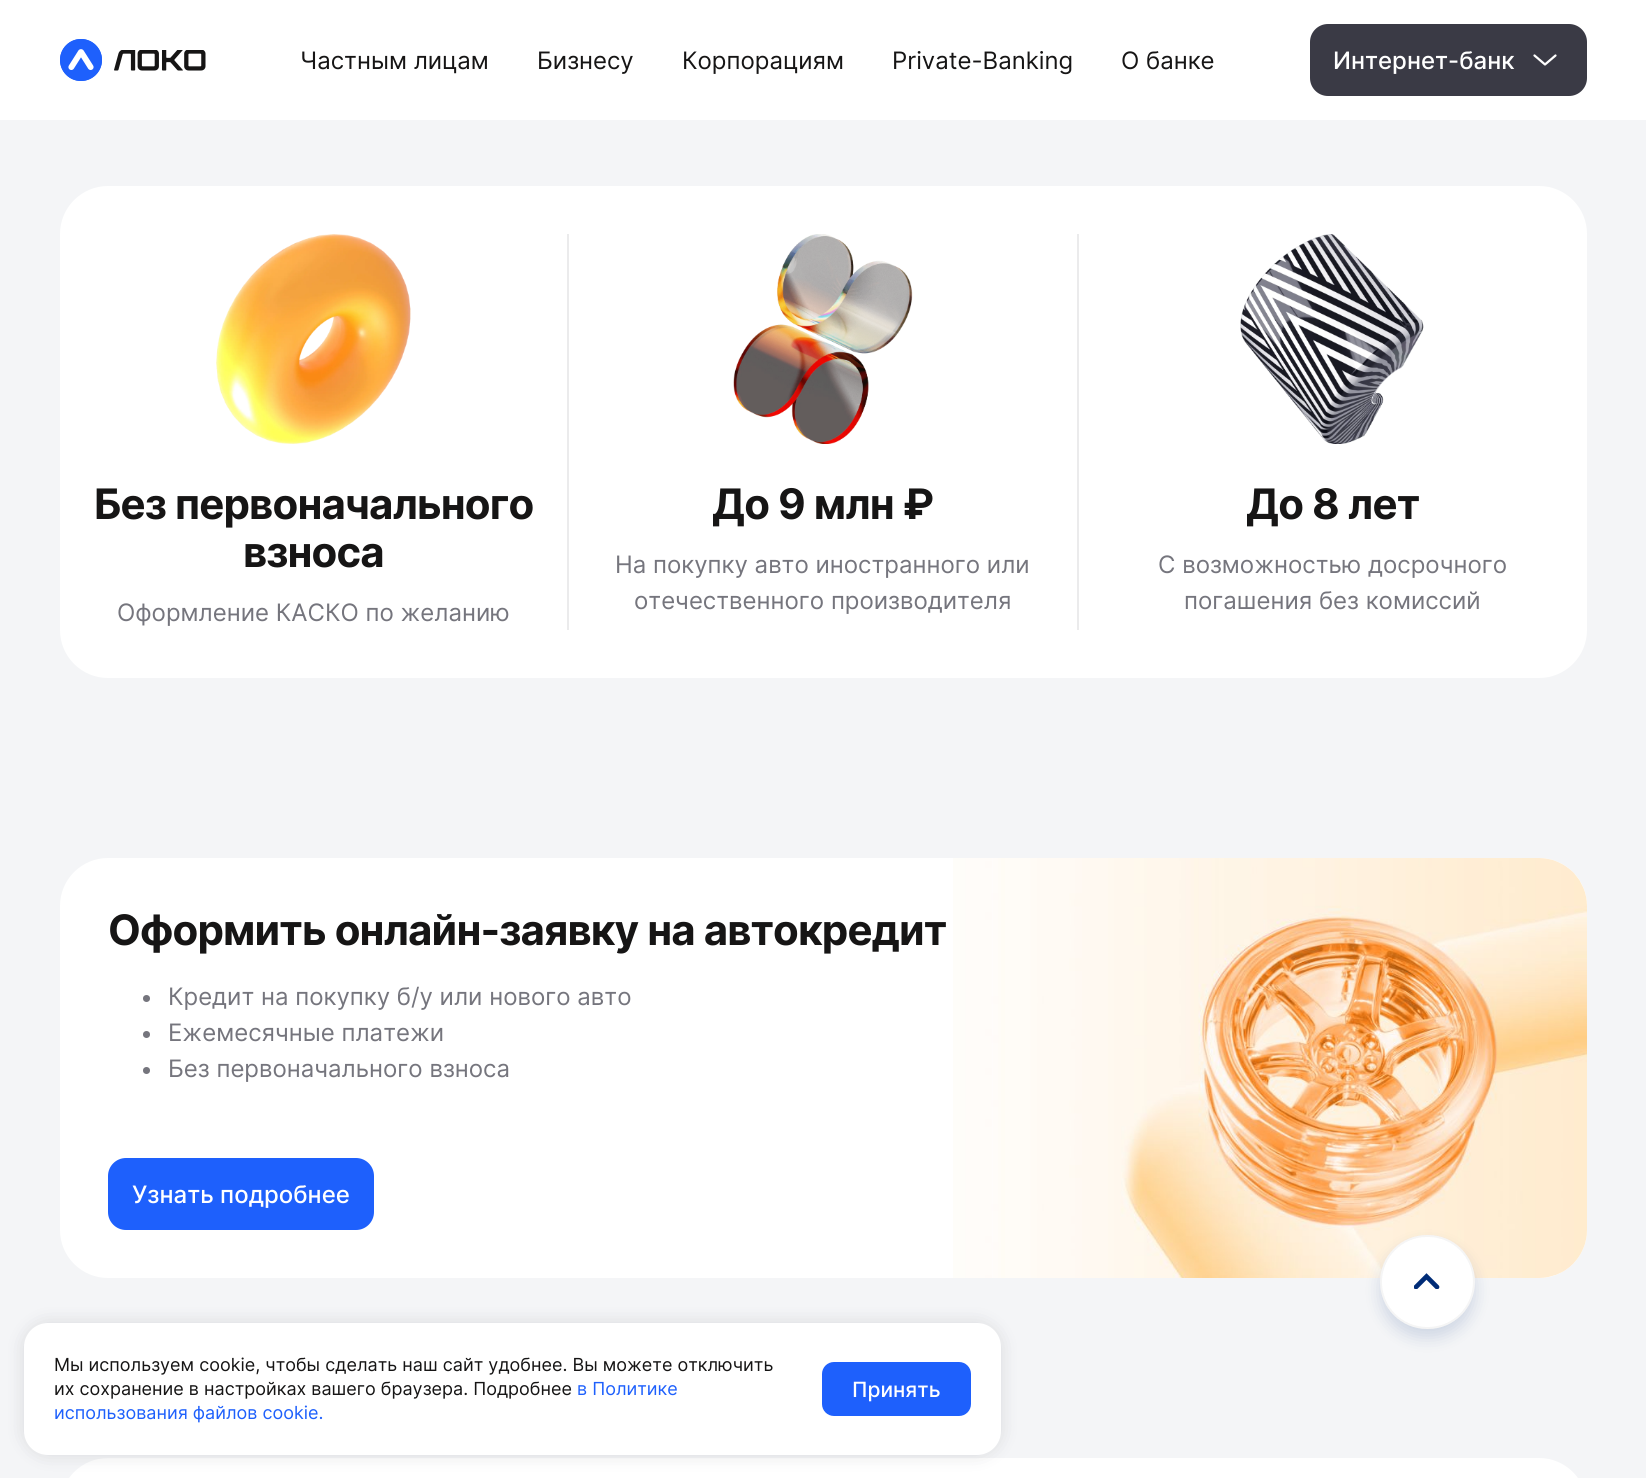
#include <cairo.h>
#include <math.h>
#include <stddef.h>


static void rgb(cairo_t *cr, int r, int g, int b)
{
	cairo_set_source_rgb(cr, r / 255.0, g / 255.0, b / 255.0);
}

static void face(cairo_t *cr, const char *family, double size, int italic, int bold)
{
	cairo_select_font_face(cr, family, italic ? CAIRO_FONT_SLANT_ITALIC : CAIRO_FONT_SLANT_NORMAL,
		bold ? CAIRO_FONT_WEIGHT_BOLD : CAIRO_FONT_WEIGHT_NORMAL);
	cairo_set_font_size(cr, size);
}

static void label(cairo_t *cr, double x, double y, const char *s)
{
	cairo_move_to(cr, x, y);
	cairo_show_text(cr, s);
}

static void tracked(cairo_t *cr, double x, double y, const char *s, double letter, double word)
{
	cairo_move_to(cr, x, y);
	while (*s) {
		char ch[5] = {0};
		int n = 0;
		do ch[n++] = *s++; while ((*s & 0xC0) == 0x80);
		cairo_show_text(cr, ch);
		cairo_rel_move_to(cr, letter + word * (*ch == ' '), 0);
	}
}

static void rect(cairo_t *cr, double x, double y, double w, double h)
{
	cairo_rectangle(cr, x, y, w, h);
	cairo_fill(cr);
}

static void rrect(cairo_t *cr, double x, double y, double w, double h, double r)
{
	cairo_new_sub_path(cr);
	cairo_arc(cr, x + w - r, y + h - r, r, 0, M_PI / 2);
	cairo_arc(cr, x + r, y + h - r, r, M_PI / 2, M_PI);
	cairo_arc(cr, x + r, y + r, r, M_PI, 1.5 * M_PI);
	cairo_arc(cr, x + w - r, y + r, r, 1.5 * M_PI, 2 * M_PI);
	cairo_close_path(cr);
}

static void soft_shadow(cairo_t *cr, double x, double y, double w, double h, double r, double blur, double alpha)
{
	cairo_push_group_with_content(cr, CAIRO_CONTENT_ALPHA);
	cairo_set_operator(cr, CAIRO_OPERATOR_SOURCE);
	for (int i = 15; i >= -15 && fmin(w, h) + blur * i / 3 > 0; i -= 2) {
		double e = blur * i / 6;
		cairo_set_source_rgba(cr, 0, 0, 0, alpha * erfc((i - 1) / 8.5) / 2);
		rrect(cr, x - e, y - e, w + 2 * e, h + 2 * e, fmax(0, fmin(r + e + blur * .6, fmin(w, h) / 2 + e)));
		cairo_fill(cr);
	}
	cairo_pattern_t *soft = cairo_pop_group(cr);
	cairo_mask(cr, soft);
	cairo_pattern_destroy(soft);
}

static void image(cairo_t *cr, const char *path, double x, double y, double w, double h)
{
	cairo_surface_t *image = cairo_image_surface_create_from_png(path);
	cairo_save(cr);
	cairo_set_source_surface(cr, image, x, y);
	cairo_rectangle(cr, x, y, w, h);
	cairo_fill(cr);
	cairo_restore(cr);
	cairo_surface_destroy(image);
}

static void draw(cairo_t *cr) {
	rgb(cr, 244, 245, 247);
	cairo_paint(cr);
	rgb(cr, 255, 255, 255);
	rect(cr, 0, 0, 1646, 120);
	image(cr, "image0.png", 60, 39, 42, 42);
	image(cr, "image1.png", 114, 50, 92, 21);
	face(cr, "Inter", 24, 0, 0);
	rgb(cr, 22, 21, 21);
	label(cr, 300, 69, "Частным лицам");
	label(cr, 537, 69, "Бизнесу");
	label(cr, 682, 69, "Корпорациям");
	label(cr, 892, 69, "Private-Banking");
	label(cr, 1121, 69, "О банке");
	rgb(cr, 58, 58, 69);
	rrect(cr, 1310, 24, 277, 72, 18);
	cairo_fill(cr);
	face(cr, "Inter Medium", 24, 0, 0);
	rgb(cr, 255, 255, 255);
	label(cr, 1333, 69, "Интернет-банк");
	image(cr, "image2.png", 1533, 54, 24, 12);
	rrect(cr, 60, 186, 1527, 492, 48);
	cairo_fill(cr);
	rgb(cr, 235, 235, 236);
	rect(cr, 567, 234, 2, 396);
	image(cr, "image3.png", 216, 234, 195, 210);
	face(cr, "Inter", 42, 0, 1);
	rgb(cr, 22, 21, 21);
	tracked(cr, 94, 519, "Без первоначального", -0.85, 0);
	tracked(cr, 243, 567, "взноса", -0.85, 0);
	face(cr, "Inter", 24, 0, 0);
	rgb(cr, 117, 117, 125);
	label(cr, 117, 621, "Оформление КАСКО по желанию");
	rgb(cr, 235, 235, 236);
	rect(cr, 1077, 234, 2, 396);
	image(cr, "image4.png", 733, 234, 180, 210);
	face(cr, "Inter", 42, 0, 1);
	rgb(cr, 22, 21, 21);
	tracked(cr, 712, 519, "До 9 млн ₽", -0.85, 0);
	face(cr, "Inter", 24, 0, 0);
	rgb(cr, 117, 117, 125);
	label(cr, 615, 573, "На покупку авто иностранного или");
	label(cr, 634, 609, "отечественного производителя");
	image(cr, "image5.png", 1240, 234, 184, 210);
	face(cr, "Inter", 42, 0, 1);
	rgb(cr, 22, 21, 21);
	tracked(cr, 1246, 519, "До 8 лет", -0.85, 0);
	face(cr, "Inter", 24, 0, 0);
	rgb(cr, 117, 117, 125);
	label(cr, 1158, 573, "С возможностью досрочного");
	label(cr, 1184, 609, "погашения без комиссий");
	rgb(cr, 255, 255, 255);
	rrect(cr, 60, 858, 1527, 420, 48);
	cairo_fill(cr);
	image(cr, "image6.png", 953, 858, 634, 420);
	face(cr, "Inter", 42, 0, 1);
	rgb(cr, 22, 21, 21);
	tracked(cr, 108, 945, "Оформить онлайн-заявку на автокредит", -0.85, 0);
	rgb(cr, 117, 117, 125);
	cairo_new_path(cr);
	cairo_arc(cr, 146.5, 998.5, 3.5, 0, 2 * M_PI);
	cairo_fill(cr);
	face(cr, "Inter", 24, 0, 0);
	label(cr, 168, 1005, "Кредит на покупку б/у или нового авто");
	cairo_new_path(cr);
	cairo_arc(cr, 146.5, 1034.5, 3.5, 0, 2 * M_PI);
	cairo_fill(cr);
	label(cr, 168, 1041, "Ежемесячные платежи");
	cairo_new_path(cr);
	cairo_arc(cr, 146.5, 1070.5, 3.5, 0, 2 * M_PI);
	cairo_fill(cr);
	label(cr, 168, 1077, "Без первоначального взноса");
	rgb(cr, 30, 96, 252);
	rrect(cr, 108, 1158, 266, 72, 18);
	cairo_fill(cr);
	face(cr, "Inter Medium", 24, 0, 0);
	rgb(cr, 255, 255, 255);
	label(cr, 132, 1203, "Узнать подробнее");
	rrect(cr, 60, 1458, 1527, 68, 48);
	cairo_fill(cr);
	rgb(cr, 0, 44, 119);
	soft_shadow(cr, 1380, 1244, 95, 94, 47, 8, 0.15);
	rgb(cr, 255, 255, 255);
	rrect(cr, 1380, 1235, 95, 94, 47);
	cairo_fill(cr);
	rrect(cr, 1381, 1236, 93, 92, 46);
	cairo_set_source_rgba(cr, 0.502, 0.502, 0.502, 0.08);
	cairo_stroke(cr);
	cairo_save(cr);
	cairo_new_path(cr);
	cairo_move_to(cr, 1441, 1271);
	cairo_line_to(cr, 1441, 1289);
	cairo_line_to(cr, 1414, 1289);
	cairo_line_to(cr, 1414, 1271);
	cairo_close_path(cr);
	cairo_clip(cr);
	cairo_new_path(cr);
	cairo_move_to(cr, 1437, 1287);
	cairo_line_to(cr, 1426.5, 1276.5);
	cairo_line_to(cr, 1416, 1287);
	rgb(cr, 0, 44, 119);
	cairo_set_line_width(cr, 4.7);
	cairo_set_line_cap(cr, CAIRO_LINE_CAP_ROUND);
	cairo_stroke(cr);
	cairo_restore(cr);
	rgb(cr, 58, 58, 69);
	soft_shadow(cr, 24, 1323, 977, 132, 24, 9, 0.15);
	rgb(cr, 255, 255, 255);
	rrect(cr, 24, 1323, 977, 132, 24);
	cairo_fill(cr);
	face(cr, "Inter", 18, 0, 0);
	rgb(cr, 22, 21, 21);
	label(cr, 54, 1371, "Мы используем cookie, чтобы сделать наш сайт удобнее. Вы можете отключить");
	label(cr, 54, 1395, "их сохранение в настройках вашего браузера. Подробнее");
	rgb(cr, 30, 96, 252);
	label(cr, 577, 1395, "в Политике");
	label(cr, 54, 1419, "использования файлов cookie.");
	rrect(cr, 822, 1362, 149, 54, 12);
	cairo_fill(cr);
	face(cr, "Inter Medium", 21, 0, 0);
	rgb(cr, 255, 255, 255);
	label(cr, 852, 1397, "Принять");
}

int main(void) {
	cairo_surface_t *surface = cairo_image_surface_create(CAIRO_FORMAT_RGB24, 1646, 1478);
	cairo_t *cr = cairo_create(surface);
	cairo_font_options_t *options = cairo_font_options_create();
	cairo_font_options_set_hint_metrics(options, CAIRO_HINT_METRICS_OFF);
	cairo_font_options_set_hint_style(options, CAIRO_HINT_STYLE_NONE);
	cairo_set_font_options(cr, options);
	cairo_set_miter_limit(cr, 4);
	draw(cr);
	cairo_surface_write_to_png(surface, "render.png");
	cairo_font_options_destroy(options);
	cairo_destroy(cr);
	cairo_surface_destroy(surface);
	return 0;
}
